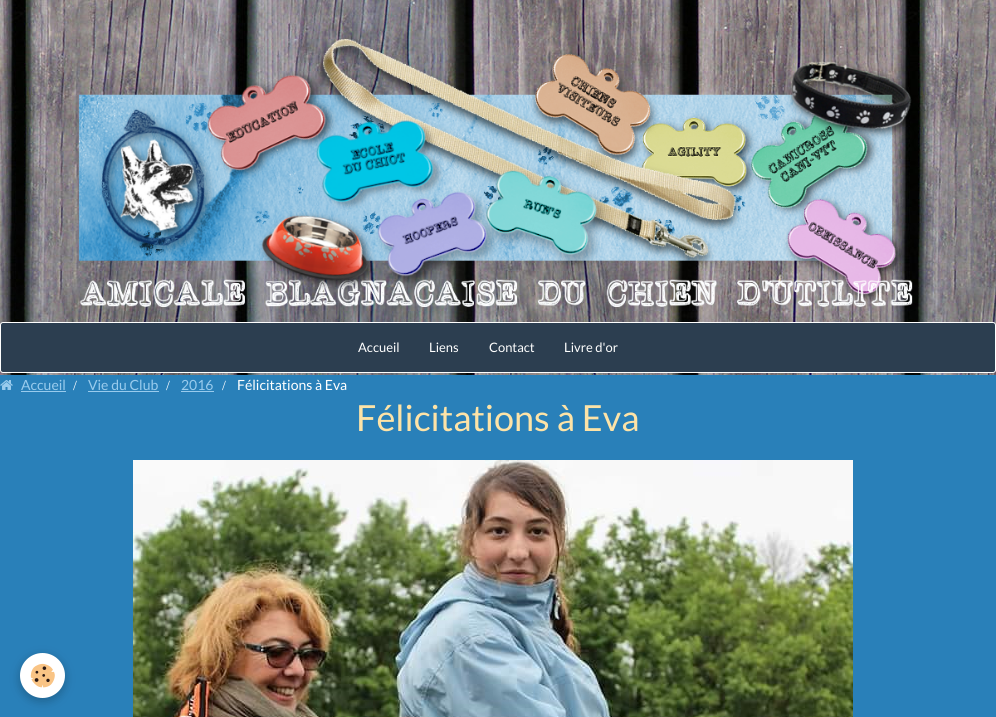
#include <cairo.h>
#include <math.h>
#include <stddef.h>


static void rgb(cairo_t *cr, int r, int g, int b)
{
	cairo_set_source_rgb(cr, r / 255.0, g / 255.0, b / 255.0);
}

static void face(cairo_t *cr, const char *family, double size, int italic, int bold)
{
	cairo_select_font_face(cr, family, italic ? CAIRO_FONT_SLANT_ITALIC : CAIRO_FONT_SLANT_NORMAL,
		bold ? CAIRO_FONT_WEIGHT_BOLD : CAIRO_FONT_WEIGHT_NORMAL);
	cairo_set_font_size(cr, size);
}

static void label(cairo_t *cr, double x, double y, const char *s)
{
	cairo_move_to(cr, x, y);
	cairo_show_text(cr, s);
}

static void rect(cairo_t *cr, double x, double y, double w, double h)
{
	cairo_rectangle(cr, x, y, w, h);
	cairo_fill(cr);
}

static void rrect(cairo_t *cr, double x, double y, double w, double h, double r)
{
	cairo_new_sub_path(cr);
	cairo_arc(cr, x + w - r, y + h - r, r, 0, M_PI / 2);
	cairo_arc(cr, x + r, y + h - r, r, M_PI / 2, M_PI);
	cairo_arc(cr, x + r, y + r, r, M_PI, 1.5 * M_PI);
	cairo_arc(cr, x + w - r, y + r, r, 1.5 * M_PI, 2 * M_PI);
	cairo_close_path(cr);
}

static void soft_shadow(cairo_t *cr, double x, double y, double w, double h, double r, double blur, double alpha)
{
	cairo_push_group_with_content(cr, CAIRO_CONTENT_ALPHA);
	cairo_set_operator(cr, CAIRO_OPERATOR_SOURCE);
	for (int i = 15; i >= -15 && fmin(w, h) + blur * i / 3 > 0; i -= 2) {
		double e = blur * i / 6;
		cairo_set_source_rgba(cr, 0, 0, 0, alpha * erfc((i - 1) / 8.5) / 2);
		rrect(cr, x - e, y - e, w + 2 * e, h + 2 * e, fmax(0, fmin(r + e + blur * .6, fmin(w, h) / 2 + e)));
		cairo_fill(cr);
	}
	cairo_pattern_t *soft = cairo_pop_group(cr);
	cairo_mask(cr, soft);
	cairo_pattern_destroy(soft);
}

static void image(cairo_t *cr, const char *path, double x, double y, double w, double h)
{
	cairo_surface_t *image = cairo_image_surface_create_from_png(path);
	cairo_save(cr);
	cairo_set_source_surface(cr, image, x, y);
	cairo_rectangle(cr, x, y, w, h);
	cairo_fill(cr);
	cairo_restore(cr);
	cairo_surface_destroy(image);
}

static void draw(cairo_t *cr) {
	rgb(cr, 255, 255, 255);
	cairo_paint(cr);
	image(cr, "image0.png", 0, 0, 996, 375);
	image(cr, "image1.png", 78, 38, 835, 269);
	rgb(cr, 44, 62, 80);
	rrect(cr, 0.5, 322.5, 995, 50, 2.5);
	cairo_fill_preserve(cr);
	rgb(cr, 255, 255, 255);
	cairo_set_line_width(cr, 1);
	cairo_stroke(cr);
	face(cr, "Lato", 13, 0, 0);
	label(cr, 358, 352, "Accueil");
	label(cr, 429, 352, "Liens");
	label(cr, 489, 352, "Contact");
	label(cr, 564, 352, "Livre d'or");
	rgb(cr, 41, 128, 185);
	rect(cr, 0, 375, 996, 342);
	image(cr, "image2.png", 0, 380, 13, 10);
	face(cr, "Lato", 14, 0, 0);
	rgb(cr, 153, 203, 237);
	label(cr, 21, 390, "Accueil");
	rect(cr, 21, 391, 45, 1);
	face(cr, "Liberation Serif", 14, 0, 0);
	rgb(cr, 255, 255, 255);
	label(cr, 73, 390, "/");
	face(cr, "Lato", 14, 0, 0);
	rgb(cr, 153, 203, 237);
	label(cr, 88, 390, "Vie du Club");
	rect(cr, 88, 391, 71, 1);
	face(cr, "Liberation Serif", 14, 0, 0);
	rgb(cr, 255, 255, 255);
	label(cr, 166, 390, "/");
	face(cr, "Lato", 14, 0, 0);
	rgb(cr, 153, 203, 237);
	label(cr, 181, 390, "2016");
	rect(cr, 181, 391, 33, 1);
	face(cr, "Liberation Serif", 14, 0, 0);
	rgb(cr, 255, 255, 255);
	label(cr, 222, 390, "/");
	face(cr, "Lato", 14, 0, 0);
	label(cr, 237, 390, "Félicitations à Eva");
	face(cr, "Lato", 36, 0, 0);
	rgb(cr, 253, 227, 167);
	label(cr, 356, 431, "Félicitations à Eva");
	image(cr, "image3.png", 133, 460, 720, 257);
	rgb(cr, 0, 0, 0);
	soft_shadow(cr, 20, 656, 45, 45, 22.5, 5, 0.24);
	rgb(cr, 255, 255, 255);
	cairo_arc(cr, 42.5, 675.5, 22.5, 0, 2 * M_PI);
	cairo_fill(cr);
	image(cr, "image4.png", 30, 663, 25, 25);
}

int main(void) {
	cairo_surface_t *surface = cairo_image_surface_create(CAIRO_FORMAT_RGB24, 996, 717);
	cairo_t *cr = cairo_create(surface);
	cairo_font_options_t *options = cairo_font_options_create();
	cairo_font_options_set_hint_metrics(options, CAIRO_HINT_METRICS_OFF);
	cairo_font_options_set_hint_style(options, CAIRO_HINT_STYLE_NONE);
	cairo_set_font_options(cr, options);
	cairo_set_miter_limit(cr, 4);
	draw(cr);
	cairo_surface_write_to_png(surface, "render.png");
	cairo_font_options_destroy(options);
	cairo_destroy(cr);
	cairo_surface_destroy(surface);
	return 0;
}
